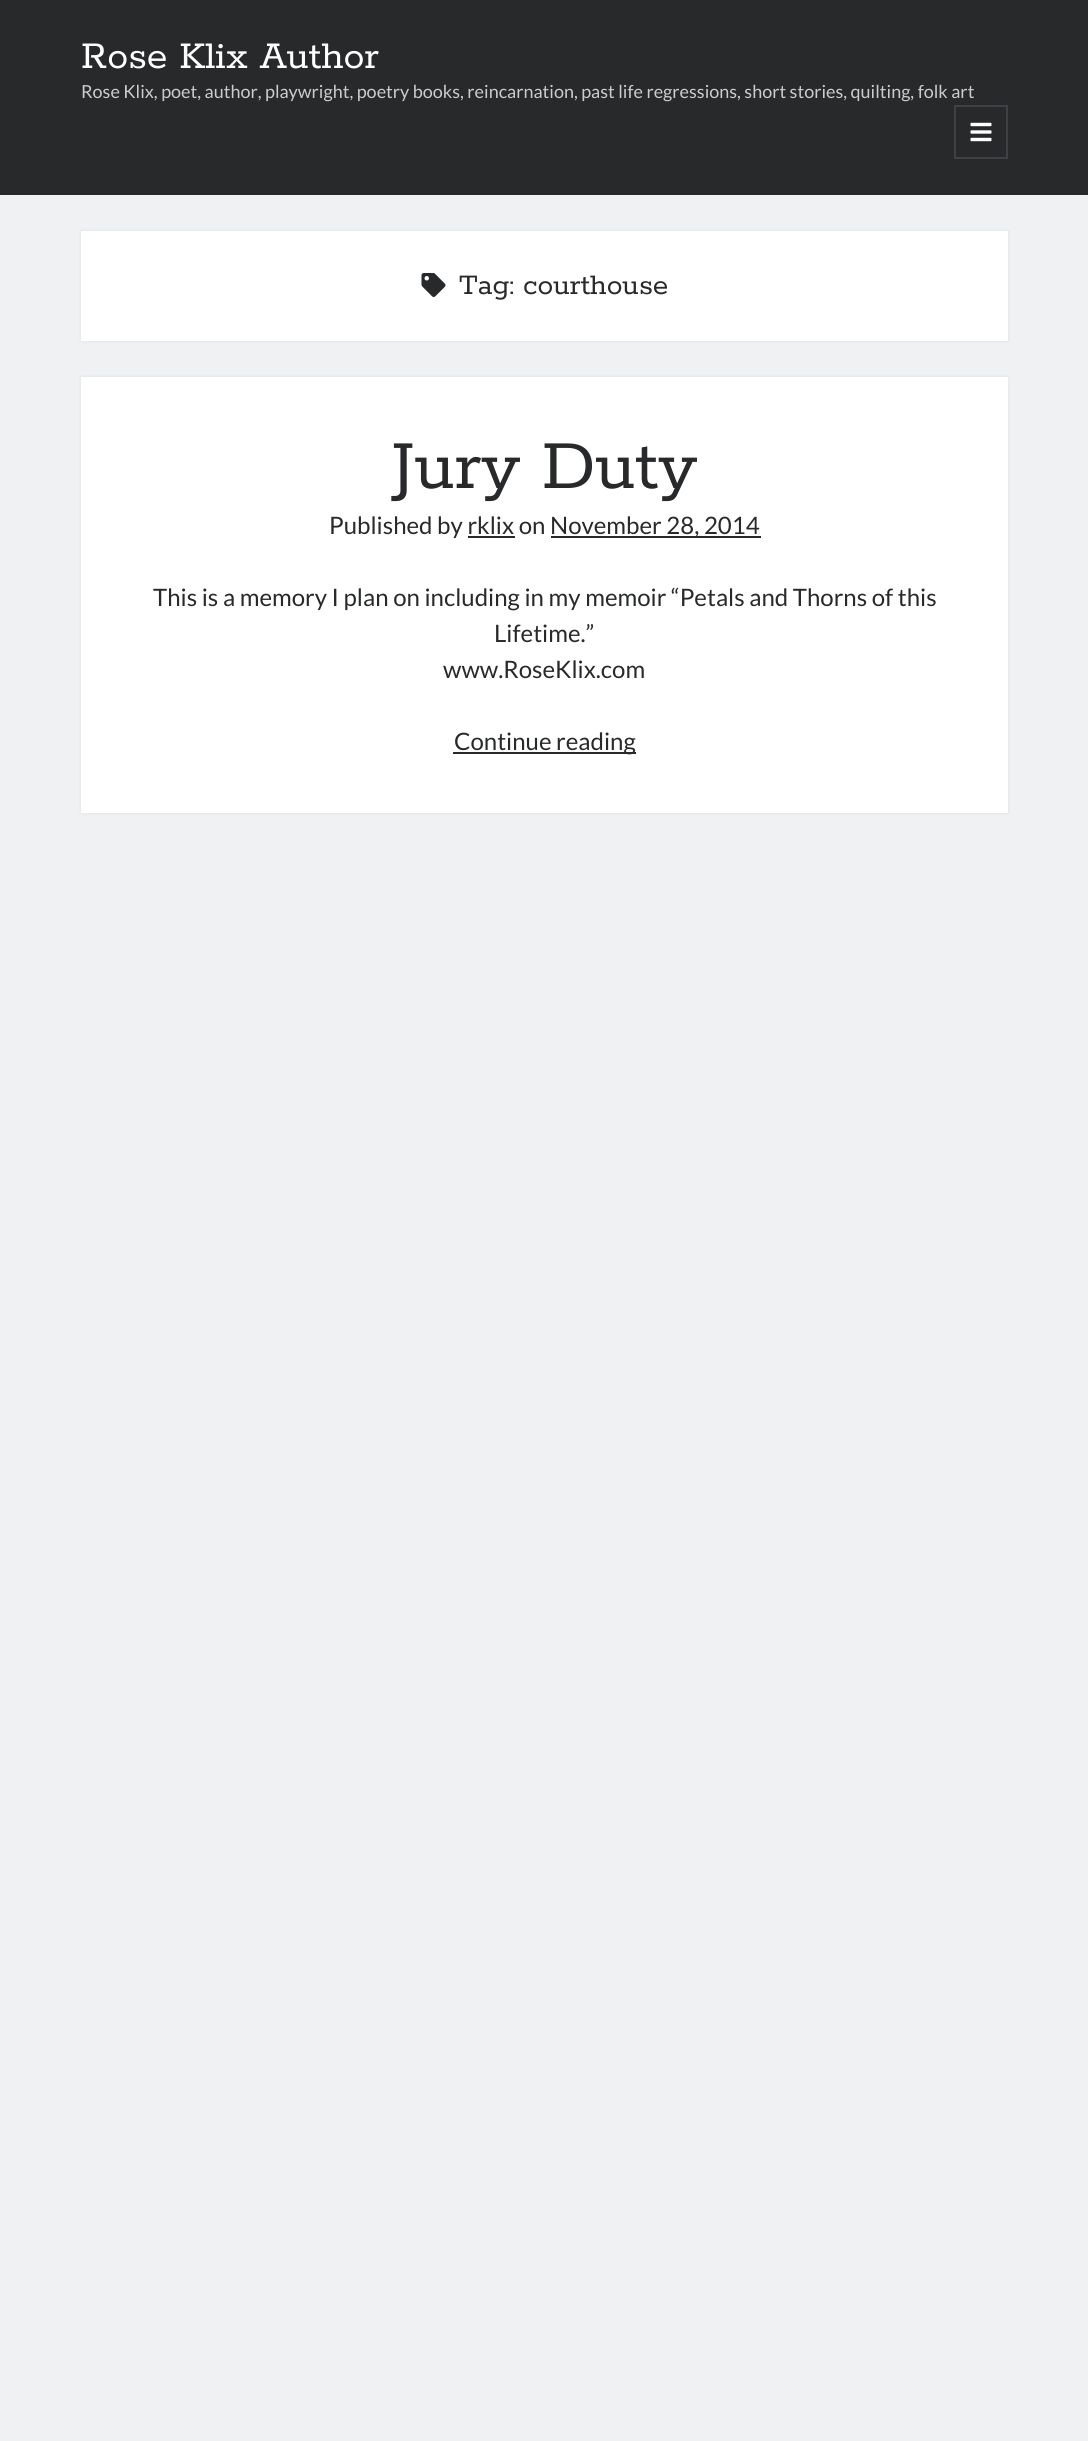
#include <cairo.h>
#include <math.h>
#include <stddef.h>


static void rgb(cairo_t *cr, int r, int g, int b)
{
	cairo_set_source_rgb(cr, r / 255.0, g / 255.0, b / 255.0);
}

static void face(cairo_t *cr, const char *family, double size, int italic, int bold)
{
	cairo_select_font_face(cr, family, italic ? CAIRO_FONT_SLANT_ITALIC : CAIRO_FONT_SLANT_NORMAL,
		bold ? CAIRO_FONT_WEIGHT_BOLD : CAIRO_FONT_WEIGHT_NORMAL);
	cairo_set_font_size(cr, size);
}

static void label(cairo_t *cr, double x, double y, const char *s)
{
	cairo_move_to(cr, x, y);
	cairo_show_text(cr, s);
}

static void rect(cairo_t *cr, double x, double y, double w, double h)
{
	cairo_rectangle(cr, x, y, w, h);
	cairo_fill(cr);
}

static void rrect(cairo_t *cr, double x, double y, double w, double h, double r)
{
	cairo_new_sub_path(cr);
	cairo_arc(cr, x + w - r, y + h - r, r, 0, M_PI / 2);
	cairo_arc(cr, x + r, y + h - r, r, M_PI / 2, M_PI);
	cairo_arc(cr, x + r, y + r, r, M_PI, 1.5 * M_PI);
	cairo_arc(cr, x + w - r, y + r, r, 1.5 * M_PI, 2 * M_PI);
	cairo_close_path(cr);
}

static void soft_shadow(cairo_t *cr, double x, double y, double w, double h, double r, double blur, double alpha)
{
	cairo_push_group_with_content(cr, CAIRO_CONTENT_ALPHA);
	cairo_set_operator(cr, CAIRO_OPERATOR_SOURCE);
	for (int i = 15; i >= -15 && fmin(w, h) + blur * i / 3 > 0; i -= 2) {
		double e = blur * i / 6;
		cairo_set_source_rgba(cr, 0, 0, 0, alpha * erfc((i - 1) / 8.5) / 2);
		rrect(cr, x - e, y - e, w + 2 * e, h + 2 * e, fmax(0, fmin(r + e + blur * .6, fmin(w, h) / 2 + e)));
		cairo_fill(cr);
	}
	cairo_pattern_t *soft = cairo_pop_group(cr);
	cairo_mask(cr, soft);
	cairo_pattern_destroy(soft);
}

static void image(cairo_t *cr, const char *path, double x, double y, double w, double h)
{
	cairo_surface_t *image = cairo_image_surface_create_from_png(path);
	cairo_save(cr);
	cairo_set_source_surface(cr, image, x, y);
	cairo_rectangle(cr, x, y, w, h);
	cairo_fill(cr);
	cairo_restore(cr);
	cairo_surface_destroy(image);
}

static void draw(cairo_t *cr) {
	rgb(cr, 39, 41, 43);
	cairo_paint(cr);
	face(cr, "Rokkitt", 42, 0, 0);
	rgb(cr, 255, 255, 255);
	label(cr, 81, 68, "Rose Klix Author");
	face(cr, "Lato", 18, 0, 0);
	rgb(cr, 204, 204, 204);
	label(cr, 81, 98, "Rose Klix, poet, author, playwright, poetry books, reincarnation, past life regressions, short stories, quilting, folk art");
	cairo_rectangle(cr, 955, 106, 52, 52);
	rgb(cr, 62, 65, 69);
	cairo_stroke(cr);
	image(cr, "image0.png", 970, 122, 22, 20);
	rgb(cr, 240, 241, 242);
	rect(cr, 0, 195, 1088, 2246);
	rgb(cr, 39, 43, 47);
	soft_shadow(cr, 81, 231, 927, 110, 0, 1.5, 0.1);
	rgb(cr, 255, 255, 255);
	rect(cr, 81, 231, 927, 110);
	image(cr, "image1.png", 421, 273, 25, 24);
	face(cr, "Rokkitt", 31.5, 0, 0);
	rgb(cr, 39, 41, 43);
	label(cr, 459, 294, "Tag: courthouse");
	rgb(cr, 39, 43, 47);
	soft_shadow(cr, 81, 377, 927, 436, 0, 1.5, 0.1);
	rgb(cr, 255, 255, 255);
	rect(cr, 81, 377, 927, 436);
	face(cr, "Rokkitt", 76.5, 0, 0);
	rgb(cr, 39, 41, 43);
	label(cr, 392, 488, "Jury Duty");
	face(cr, "Lato", 24, 0, 0);
	label(cr, 329, 534, "Published by rklix on");
	rect(cr, 468, 536, 47, 2);
	rect(cr, 551, 536, 210, 2);
	label(cr, 550, 534, "November 28, 2014");
	label(cr, 153, 606, "This is a memory I plan on including in my memoir “Petals and Thorns of this");
	label(cr, 494, 642, "Lifetime.”");
	label(cr, 443, 678, "www.RoseKlix.com");
	rect(cr, 453, 752, 183, 2);
	label(cr, 454, 750, "Continue reading");
}

int main(void) {
	cairo_surface_t *surface = cairo_image_surface_create(CAIRO_FORMAT_RGB24, 1088, 2441);
	cairo_t *cr = cairo_create(surface);
	cairo_font_options_t *options = cairo_font_options_create();
	cairo_font_options_set_hint_metrics(options, CAIRO_HINT_METRICS_OFF);
	cairo_font_options_set_hint_style(options, CAIRO_HINT_STYLE_NONE);
	cairo_set_font_options(cr, options);
	cairo_set_miter_limit(cr, 4);
	draw(cr);
	cairo_surface_write_to_png(surface, "render.png");
	cairo_font_options_destroy(options);
	cairo_destroy(cr);
	cairo_surface_destroy(surface);
	return 0;
}
